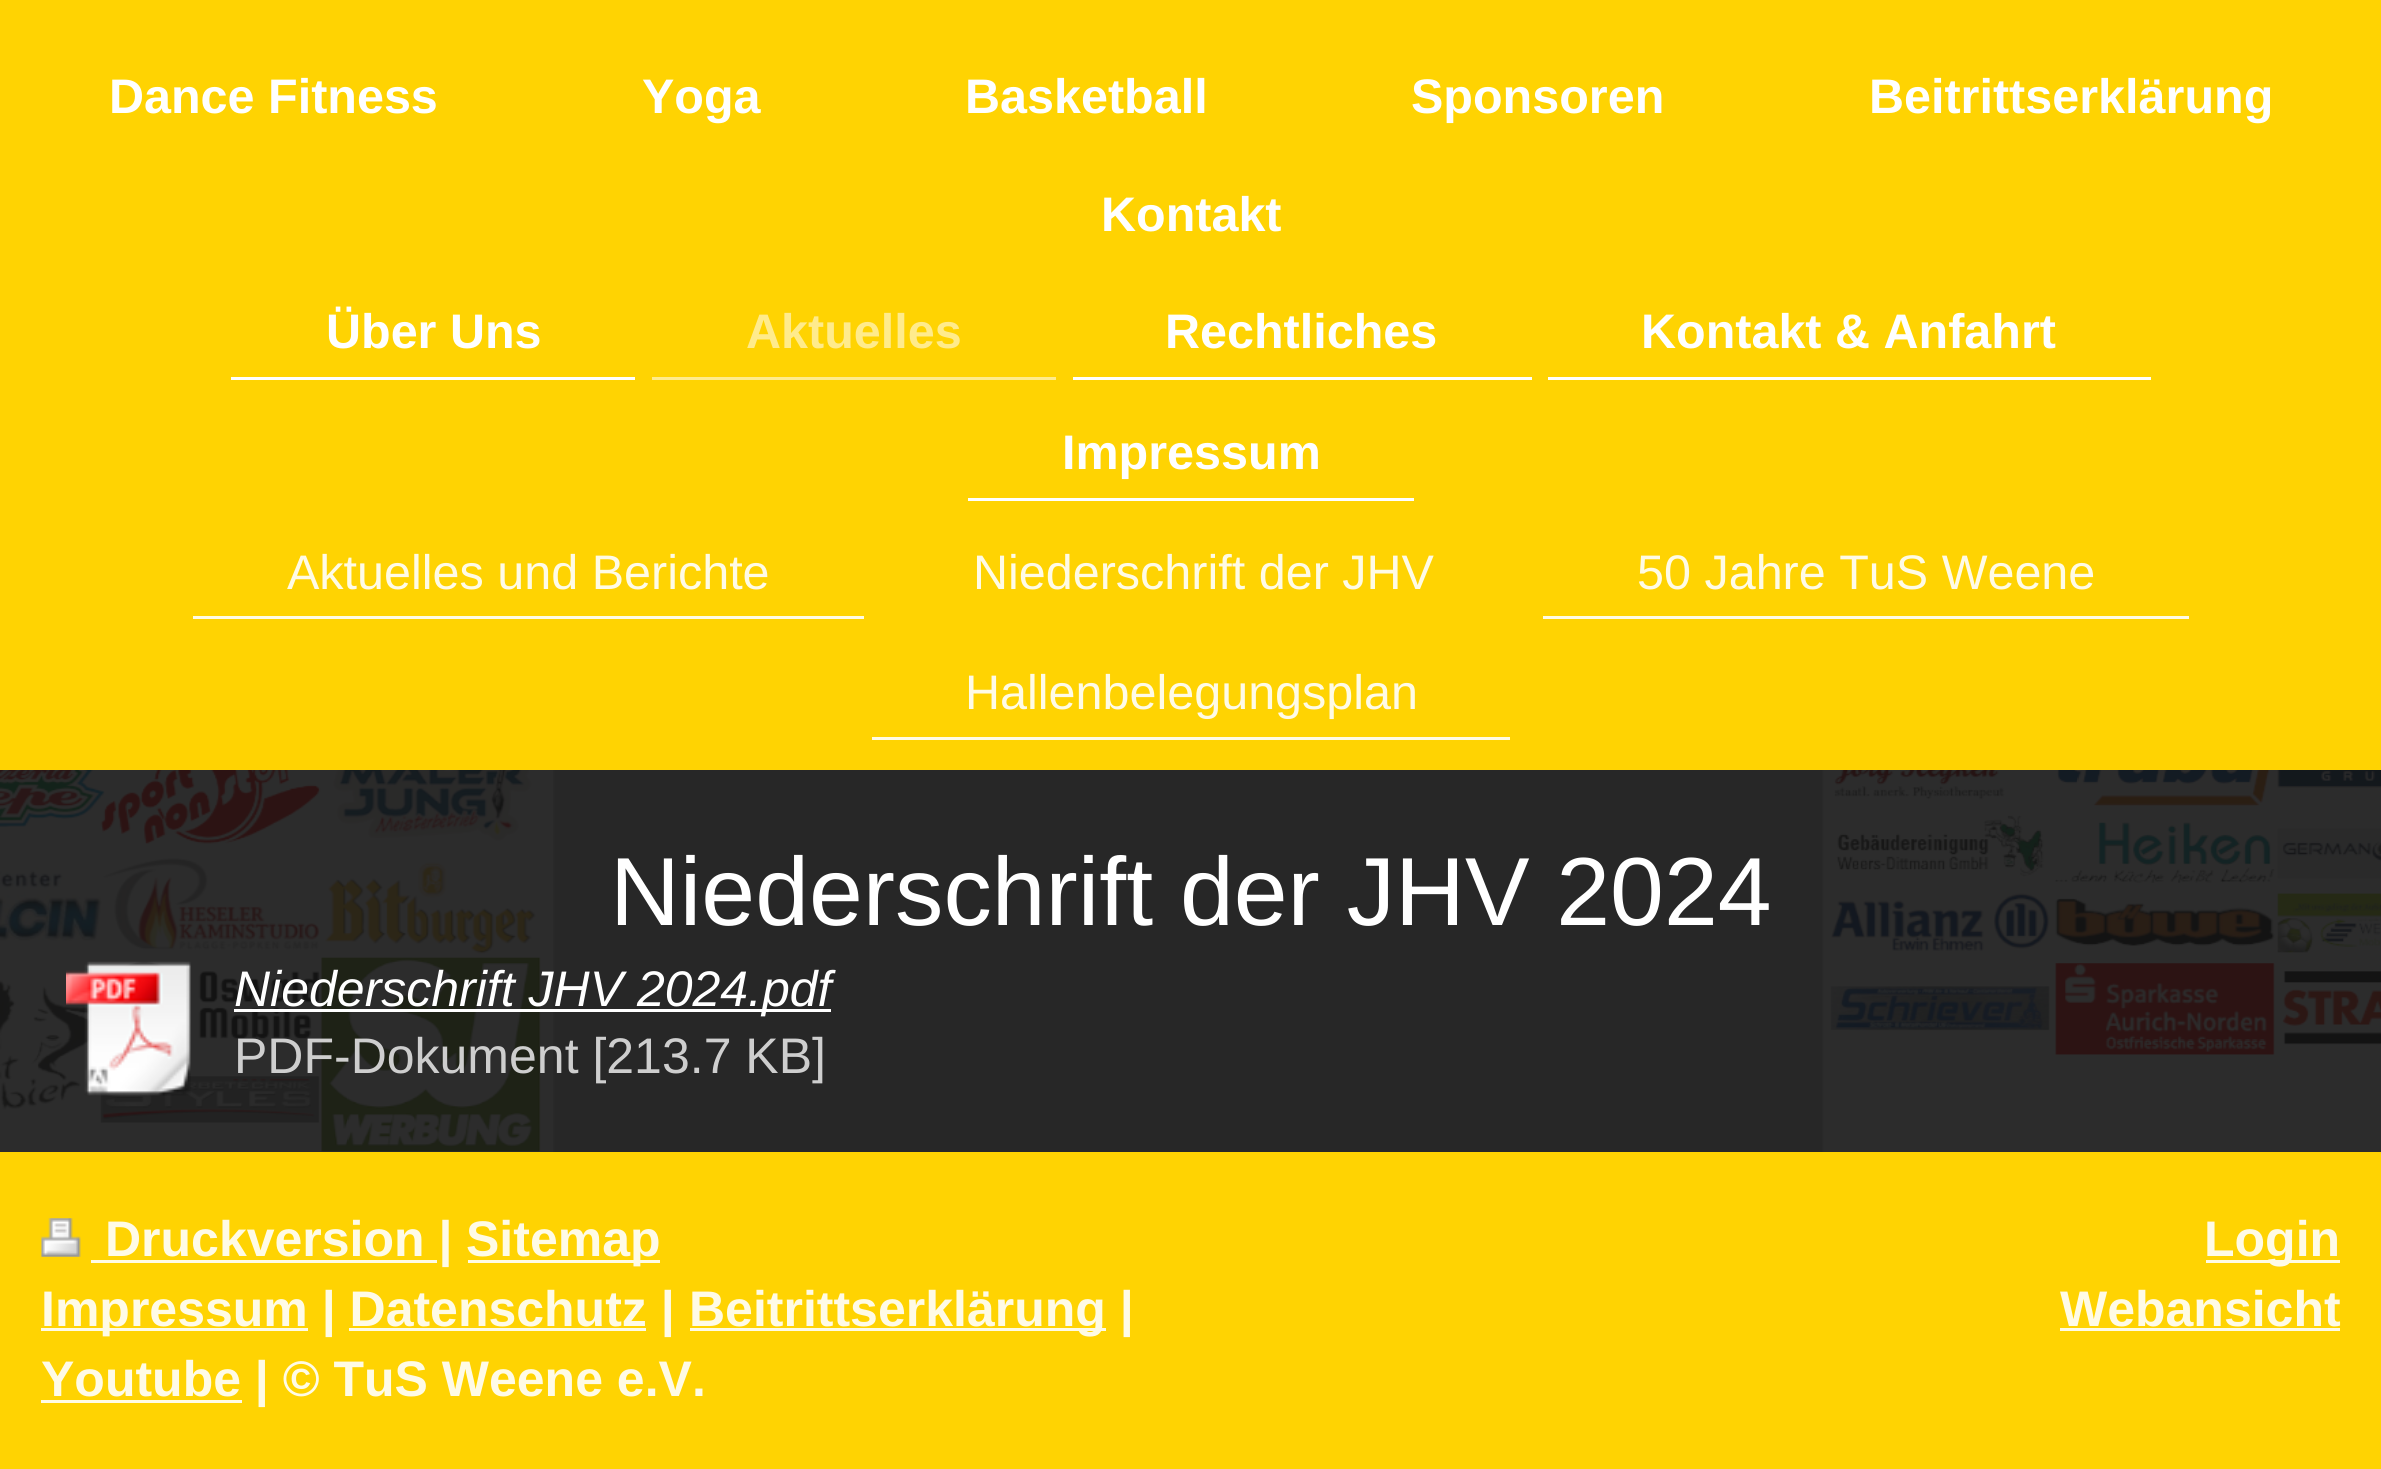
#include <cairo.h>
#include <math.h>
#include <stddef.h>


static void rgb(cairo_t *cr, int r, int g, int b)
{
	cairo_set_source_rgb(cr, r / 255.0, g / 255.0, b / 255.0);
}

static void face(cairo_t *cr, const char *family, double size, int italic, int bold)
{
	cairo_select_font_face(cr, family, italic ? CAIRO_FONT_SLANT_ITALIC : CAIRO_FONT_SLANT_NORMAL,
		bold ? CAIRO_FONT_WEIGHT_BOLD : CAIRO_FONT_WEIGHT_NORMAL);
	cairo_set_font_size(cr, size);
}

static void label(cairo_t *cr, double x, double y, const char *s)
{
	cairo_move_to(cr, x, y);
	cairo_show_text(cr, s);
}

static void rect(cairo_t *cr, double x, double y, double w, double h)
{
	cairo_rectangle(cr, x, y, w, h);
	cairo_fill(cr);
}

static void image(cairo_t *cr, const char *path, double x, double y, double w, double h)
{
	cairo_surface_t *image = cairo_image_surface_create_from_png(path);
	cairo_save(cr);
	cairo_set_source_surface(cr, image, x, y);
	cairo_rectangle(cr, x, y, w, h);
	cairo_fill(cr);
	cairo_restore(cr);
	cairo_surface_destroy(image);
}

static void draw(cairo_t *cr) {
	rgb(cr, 255, 255, 255);
	cairo_paint(cr);
	image(cr, "image0.png", 0, 770, 2381, 382);
	rgb(cr, 255, 211, 2);
	rect(cr, 0, 0, 2381, 770);
	face(cr, "Liberation Sans", 48.5, 0, 1);
	rgb(cr, 255, 255, 255);
	label(cr, 109, 113, "Dance Fitness");
	label(cr, 642, 113, "Yoga");
	label(cr, 965, 113, "Basketball");
	label(cr, 1411, 113, "Sponsoren");
	label(cr, 1869, 113, "Beitrittserklärung");
	label(cr, 1101, 231, "Kontakt");
	rect(cr, 231, 377, 404, 3);
	label(cr, 326, 348, "Über Uns");
	rgb(cr, 255, 235, 140);
	rect(cr, 652, 377, 404, 3);
	label(cr, 746, 348, "Aktuelles");
	rgb(cr, 255, 255, 255);
	rect(cr, 1073, 377, 459, 3);
	label(cr, 1165, 348, "Rechtliches");
	rect(cr, 1548, 377, 603, 3);
	label(cr, 1641, 348, "Kontakt & Anfahrt");
	rect(cr, 968, 498, 446, 3);
	label(cr, 1062, 469, "Impressum");
	rgb(cr, 255, 251, 230);
	rect(cr, 193, 616, 671, 3);
	face(cr, "Liberation Sans", 48.5, 0, 0);
	label(cr, 287, 589, "Aktuelles und Berichte");
	label(cr, 973, 589, "Niederschrift der JHV");
	rect(cr, 1543, 616, 646, 3);
	label(cr, 1637, 589, "50 Jahre TuS Weene");
	rect(cr, 872, 737, 638, 3);
	label(cr, 965, 709, "Hallenbelegungsplan");
	cairo_set_source_rgba(cr, 0.086, 0.086, 0.086, 0.9);
	rect(cr, 0, 770, 2381, 382);
	face(cr, "Liberation Sans", 96.75, 0, 0);
	rgb(cr, 255, 255, 255);
	label(cr, 610, 925, "Niederschrift der JHV 2024");
	image(cr, "image1.png", 66, 961, 125, 135);
	rect(cr, 234, 1009, 597, 3);
	face(cr, "Liberation Sans", 50, 1, 0);
	label(cr, 234, 1006, "Niederschrift JHV 2024.pdf");
	face(cr, "Liberation Sans", 50, 0, 0);
	rgb(cr, 206, 206, 206);
	label(cr, 234, 1073, "PDF-Dokument [213.7 KB]");
	rgb(cr, 255, 211, 2);
	rect(cr, 0, 1152, 2381, 317);
	image(cr, "image2.png", 41, 1218, 40, 39);
	rgb(cr, 255, 251, 230);
	rect(cr, 91, 1260, 346, 3);
	face(cr, "Liberation Sans", 50, 0, 1);
	label(cr, 105, 1256, "Druckversion |");
	rect(cr, 468, 1260, 192, 3);
	label(cr, 466, 1256, "Sitemap");
	rect(cr, 41, 1328, 267, 3);
	label(cr, 41, 1326, "Impressum | Datenschutz |");
	rect(cr, 690, 1328, 416, 3);
	label(cr, 689, 1326, "Beitrittserklärung |");
	rect(cr, 349, 1328, 297, 3);
	rect(cr, 41, 1400, 201, 3);
	label(cr, 41, 1396, "Youtube | © TuS Weene e.V.");
	rect(cr, 2206, 1260, 134, 3);
	label(cr, 2204, 1256, "Login");
	label(cr, 2060, 1326, "Webansicht");
	rect(cr, 2060, 1328, 280, 3);
}

int main(void) {
	cairo_surface_t *surface = cairo_image_surface_create(CAIRO_FORMAT_RGB24, 2381, 1469);
	cairo_t *cr = cairo_create(surface);
	cairo_font_options_t *options = cairo_font_options_create();
	cairo_font_options_set_hint_metrics(options, CAIRO_HINT_METRICS_OFF);
	cairo_font_options_set_hint_style(options, CAIRO_HINT_STYLE_NONE);
	cairo_set_font_options(cr, options);
	cairo_set_miter_limit(cr, 4);
	draw(cr);
	cairo_surface_write_to_png(surface, "render.png");
	cairo_font_options_destroy(options);
	cairo_destroy(cr);
	cairo_surface_destroy(surface);
	return 0;
}
